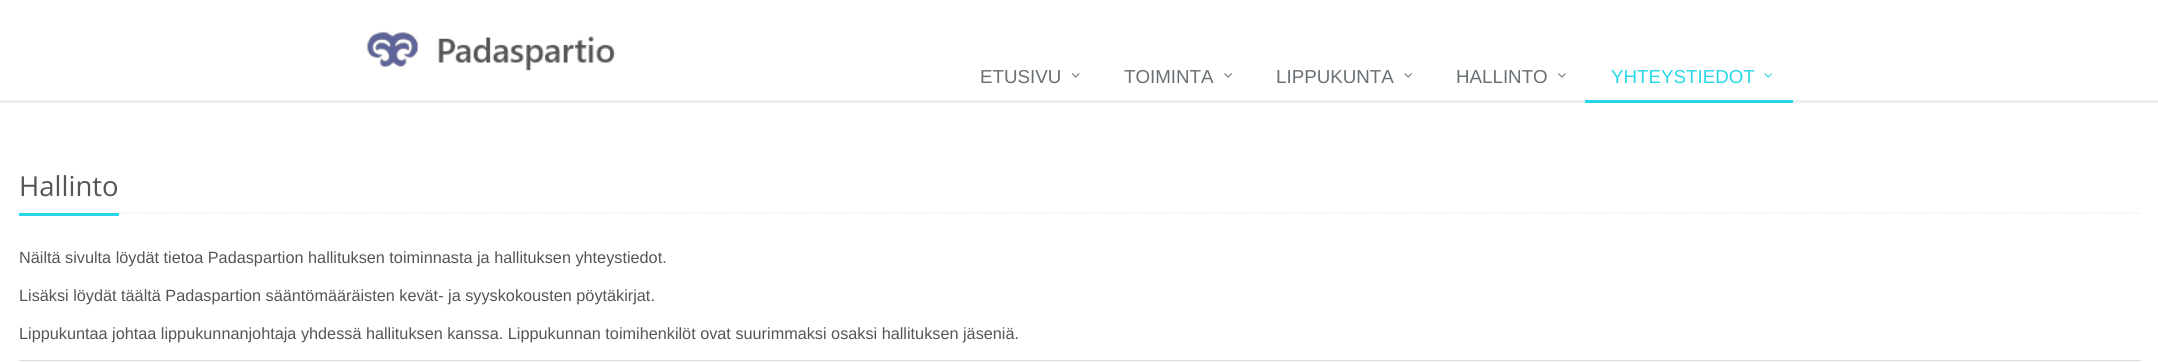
#include <cairo.h>
#include <math.h>
#include <stddef.h>


static void rgb(cairo_t *cr, int r, int g, int b)
{
	cairo_set_source_rgb(cr, r / 255.0, g / 255.0, b / 255.0);
}

static void face(cairo_t *cr, const char *family, double size, int italic, int bold)
{
	cairo_select_font_face(cr, family, italic ? CAIRO_FONT_SLANT_ITALIC : CAIRO_FONT_SLANT_NORMAL,
		bold ? CAIRO_FONT_WEIGHT_BOLD : CAIRO_FONT_WEIGHT_NORMAL);
	cairo_set_font_size(cr, size);
}

static void label(cairo_t *cr, double x, double y, const char *s)
{
	cairo_move_to(cr, x, y);
	cairo_show_text(cr, s);
}

static void rect(cairo_t *cr, double x, double y, double w, double h)
{
	cairo_rectangle(cr, x, y, w, h);
	cairo_fill(cr);
}

static void image(cairo_t *cr, const char *path, double x, double y, double w, double h)
{
	cairo_surface_t *image = cairo_image_surface_create_from_png(path);
	cairo_save(cr);
	cairo_set_source_surface(cr, image, x, y);
	cairo_rectangle(cr, x, y, w, h);
	cairo_fill(cr);
	cairo_restore(cr);
	cairo_surface_destroy(image);
}

static void draw(cairo_t *cr) {
	rgb(cr, 255, 255, 255);
	cairo_paint(cr);
	rgb(cr, 238, 238, 238);
	rect(cr, 0, 100, 2158, 3);
	image(cr, "image0.png", 367, 31, 249, 40);
	face(cr, "Liberation Sans", 18.75, 0, 0);
	rgb(cr, 104, 112, 116);
	label(cr, 980, 83, "ETUSIVU");
	image(cr, "image1.png", 1071, 73, 9, 5);
	label(cr, 1124, 83, "TOIMINTA");
	image(cr, "image2.png", 1224, 73, 8, 5);
	label(cr, 1276, 83, "LIPPUKUNTA");
	image(cr, "image2.png", 1404, 73, 8, 5);
	label(cr, 1456, 83, "HALLINTO");
	image(cr, "image3.png", 1558, 73, 8, 5);
	rgb(cr, 39, 215, 231);
	rect(cr, 1585, 100, 208, 3);
	label(cr, 1611, 83, "YHTEYSTIEDOT");
	image(cr, "image4.png", 1764, 73, 8, 5);
	cairo_new_path(cr);
	cairo_move_to(cr, 19, 213);
	cairo_line_to(cr, 2140, 213);
	rgb(cr, 228, 233, 240);
	cairo_set_line_width(cr, 1.2);
	cairo_set_dash(cr, (double[]){1.25, 1.25}, 2, 0);
	cairo_stroke(cr);
	rgb(cr, 39, 215, 231);
	rect(cr, 19, 213, 100, 3);
	face(cr, "Open Sans", 27.5, 0, 0);
	rgb(cr, 85, 85, 85);
	label(cr, 19, 196, "Hallinto");
	face(cr, "Liberation Sans", 16.25, 0, 0);
	label(cr, 19, 263, "Näiltä sivulta löydät tietoa Padaspartion hallituksen toiminnasta ja hallituksen yhteystiedot.");
	label(cr, 19, 301, "Lisäksi löydät täältä Padaspartion sääntömääräisten kevät- ja syyskokousten pöytäkirjat.");
	label(cr, 19, 339, "Lippukuntaa johtaa lippukunnanjohtaja yhdessä hallituksen kanssa. Lippukunnan toimihenkilöt ovat suurimmaksi osaksi hallituksen jäseniä.");
	rgb(cr, 249, 249, 249);
	rect(cr, 19, 361, 2121, 1);
	rgb(cr, 221, 221, 221);
	rect(cr, 19, 360, 2122, 1);
}

int main(void) {
	cairo_surface_t *surface = cairo_image_surface_create(CAIRO_FORMAT_RGB24, 2158, 362);
	cairo_t *cr = cairo_create(surface);
	cairo_font_options_t *options = cairo_font_options_create();
	cairo_font_options_set_hint_metrics(options, CAIRO_HINT_METRICS_OFF);
	cairo_font_options_set_hint_style(options, CAIRO_HINT_STYLE_NONE);
	cairo_set_font_options(cr, options);
	cairo_set_miter_limit(cr, 4);
	draw(cr);
	cairo_surface_write_to_png(surface, "render.png");
	cairo_font_options_destroy(options);
	cairo_destroy(cr);
	cairo_surface_destroy(surface);
	return 0;
}
